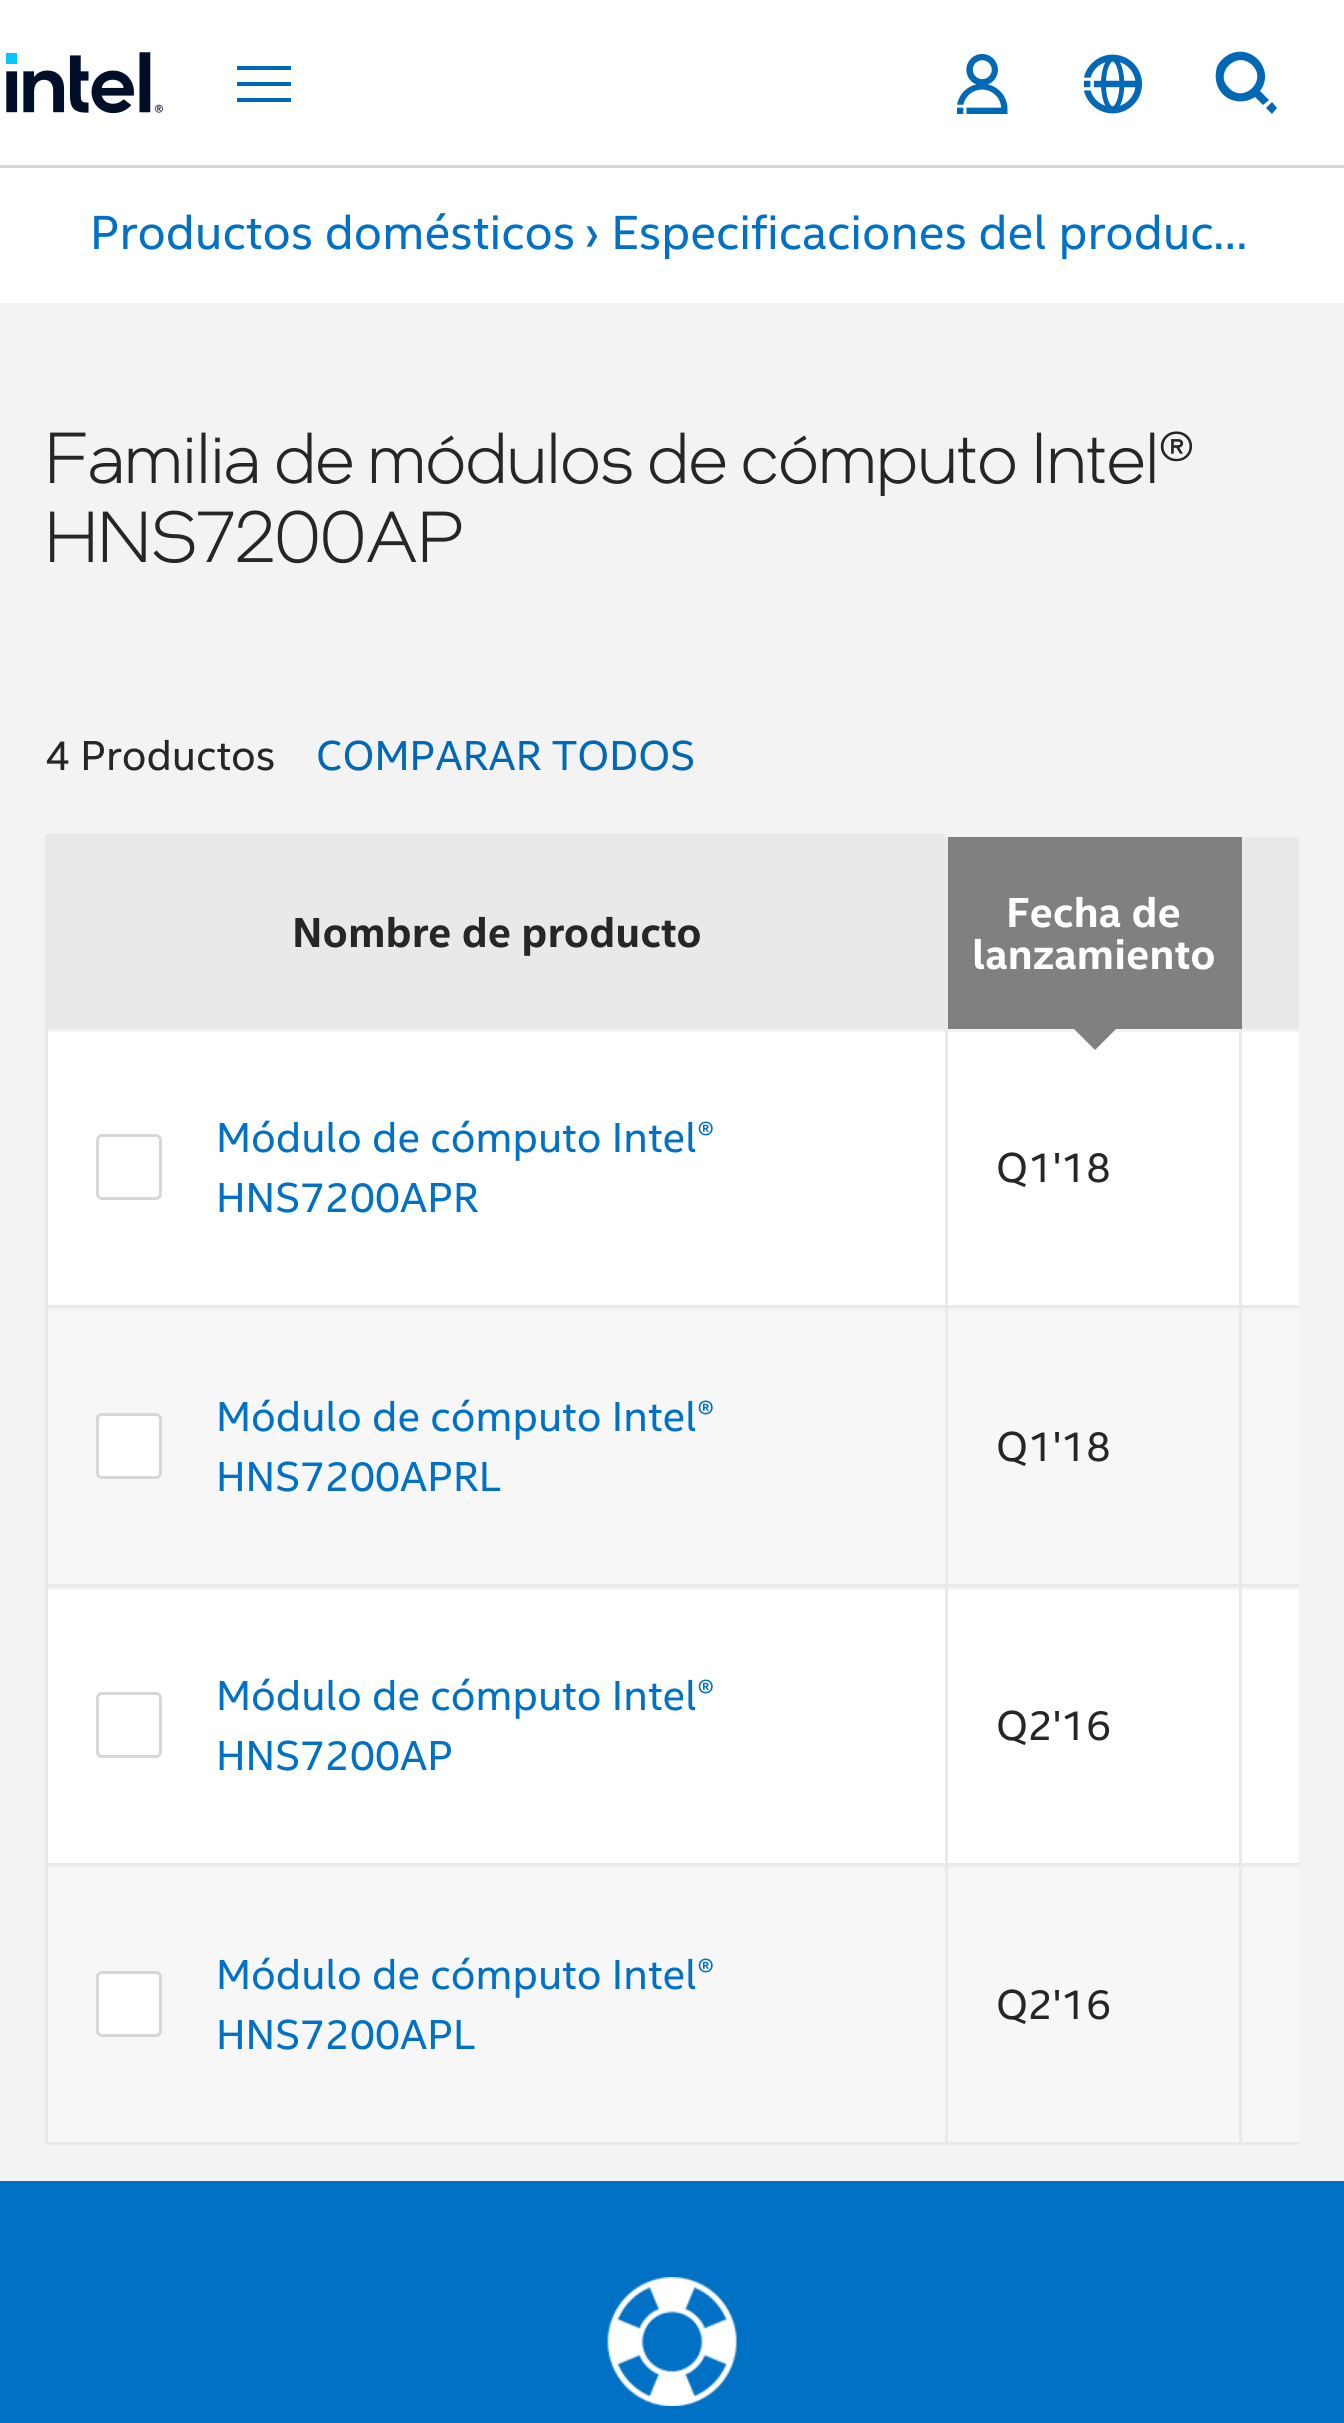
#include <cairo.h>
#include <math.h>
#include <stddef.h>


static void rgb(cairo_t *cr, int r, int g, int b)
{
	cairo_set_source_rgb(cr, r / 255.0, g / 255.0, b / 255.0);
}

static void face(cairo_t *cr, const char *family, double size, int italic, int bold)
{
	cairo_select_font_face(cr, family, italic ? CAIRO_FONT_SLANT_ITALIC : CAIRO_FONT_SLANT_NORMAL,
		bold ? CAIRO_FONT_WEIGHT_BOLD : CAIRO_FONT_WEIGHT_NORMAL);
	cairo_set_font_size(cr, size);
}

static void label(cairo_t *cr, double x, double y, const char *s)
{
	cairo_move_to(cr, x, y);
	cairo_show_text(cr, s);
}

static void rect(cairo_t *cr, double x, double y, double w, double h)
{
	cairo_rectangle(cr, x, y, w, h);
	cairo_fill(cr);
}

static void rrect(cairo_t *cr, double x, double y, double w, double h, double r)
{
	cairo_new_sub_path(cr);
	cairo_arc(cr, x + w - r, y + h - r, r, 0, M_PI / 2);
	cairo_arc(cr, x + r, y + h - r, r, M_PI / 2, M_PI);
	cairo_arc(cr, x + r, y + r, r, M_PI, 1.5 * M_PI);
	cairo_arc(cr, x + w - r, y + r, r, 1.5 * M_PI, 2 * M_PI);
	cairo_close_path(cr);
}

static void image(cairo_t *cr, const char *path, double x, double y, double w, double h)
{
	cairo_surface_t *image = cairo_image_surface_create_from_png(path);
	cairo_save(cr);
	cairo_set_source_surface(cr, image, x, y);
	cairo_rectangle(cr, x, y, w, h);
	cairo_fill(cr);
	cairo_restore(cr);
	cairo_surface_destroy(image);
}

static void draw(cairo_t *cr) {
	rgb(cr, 255, 255, 255);
	cairo_paint(cr);
	rgb(cr, 215, 215, 215);
	rect(cr, 0, 165, 1344, 3);
	image(cr, "image0.png", 6, 52, 157, 62);
	rgb(cr, 0, 104, 181);
	cairo_new_path(cr);
	cairo_move_to(cr, 291, 66);
	cairo_line_to(cr, 291, 70);
	cairo_line_to(cr, 237, 70);
	cairo_line_to(cr, 237, 66);
	cairo_close_path(cr);
	cairo_move_to(cr, 237, 86);
	cairo_line_to(cr, 291, 86);
	cairo_line_to(cr, 291, 82);
	cairo_line_to(cr, 237, 82);
	cairo_close_path(cr);
	cairo_move_to(cr, 237, 102);
	cairo_line_to(cr, 291, 102);
	cairo_line_to(cr, 291, 98);
	cairo_line_to(cr, 237, 98);
	cairo_close_path(cr);
	cairo_fill(cr);
	image(cr, "image1.png", 957, 54, 51, 60);
	image(cr, "image2.png", 1083, 54, 59, 60);
	cairo_new_path(cr);
	cairo_move_to(cr, 1277, 108);
	cairo_line_to(cr, 1272, 114);
	cairo_line_to(cr, 1266, 108);
	cairo_line_to(cr, 1272, 102);
	cairo_close_path(cr);
	cairo_move_to(cr, 1269, 100);
	cairo_line_to(cr, 1263, 105);
	cairo_line_to(cr, 1255, 97);
	cairo_curve_to(cr, 1243, 105, 1226, 102, 1219, 89);
	cairo_curve_to(cr, 1215, 82, 1215, 74, 1217, 67);
	cairo_curve_to(cr, 1219, 62, 1223, 58, 1228, 55);
	cairo_curve_to(cr, 1251, 42, 1276, 70, 1260, 91);
	cairo_close_path(cr);
	cairo_move_to(cr, 1252, 65);
	cairo_curve_to(cr, 1237, 50, 1213, 73, 1229, 88);
	cairo_curve_to(cr, 1244, 104, 1268, 80, 1252, 65);
	cairo_close_path(cr);
	cairo_fill(cr);
	rgb(cr, 243, 243, 243);
	rect(cr, 0, 303, 1344, 1878);
	face(cr, "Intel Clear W", 48, 0, 0);
	rgb(cr, 0, 113, 197);
	label(cr, 90, 249, "Productos domésticos");
	label(cr, 584, 249, "› Especificaciones del produc…");
	face(cr, "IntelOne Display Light", 72, 0, 0);
	rgb(cr, 38, 38, 38);
	label(cr, 45, 483, "Familia de módulos de cómputo Intel®");
	label(cr, 45, 562, "HNS7200AP");
	face(cr, "Intel Clear W", 42, 0, 0);
	label(cr, 45, 770, "4 Productos");
	rgb(cr, 0, 104, 181);
	label(cr, 316, 770, "COMPARAR TODOS");
	rgb(cr, 233, 233, 233);
	rect(cr, 45, 834, 900, 3);
	rect(cr, 45, 2142, 1254, 3);
	rect(cr, 45, 834, 3, 1311);
	rect(cr, 45, 1305, 1254, 3);
	rect(cr, 45, 1584, 1254, 3);
	rect(cr, 45, 1863, 1254, 3);
	rect(cr, 945, 1863, 3, 282);
	rect(cr, 945, 1584, 3, 282);
	rect(cr, 945, 1026, 3, 561);
	rect(cr, 48, 837, 900, 192);
	face(cr, "Intel Clear W", 42, 0, 1);
	rgb(cr, 38, 38, 38);
	label(cr, 292, 947, "Nombre de producto");
	rgb(cr, 233, 233, 233);
	rect(cr, 1239, 1863, 3, 282);
	rect(cr, 1239, 1584, 3, 282);
	rect(cr, 1239, 1026, 3, 561);
	rgb(cr, 128, 128, 128);
	rect(cr, 948, 837, 294, 192);
	rgb(cr, 255, 255, 255);
	label(cr, 1006, 927, "Fecha de");
	label(cr, 972, 969, "lanzamiento");
	rect(cr, 948, 1032, 291, 273);
	rgb(cr, 128, 128, 128);
	cairo_new_path(cr);
	cairo_move_to(cr, 1071, 1026);
	cairo_line_to(cr, 1119, 1026);
	cairo_line_to(cr, 1095, 1050);
	cairo_close_path(cr);
	cairo_fill(cr);
	rgb(cr, 233, 233, 233);
	rect(cr, 1242, 837, 57, 192);
	rgb(cr, 255, 255, 255);
	rect(cr, 48, 1032, 897, 273);
	rrect(cr, 97.5, 1135.5, 63, 63, 4.5);
	rgb(cr, 215, 215, 215);
	cairo_set_line_width(cr, 3);
	cairo_stroke(cr);
	face(cr, "Intel Clear W", 42, 0, 0);
	rgb(cr, 0, 113, 197);
	label(cr, 216, 1152, "Módulo de cómputo Intel®");
	label(cr, 216, 1212, "HNS7200APR");
	rgb(cr, 38, 38, 38);
	label(cr, 996, 1182, "Q1'18");
	rgb(cr, 255, 255, 255);
	rect(cr, 1242, 1032, 57, 273);
	rgb(cr, 247, 247, 247);
	rect(cr, 1242, 1311, 57, 273);
	rect(cr, 48, 1311, 897, 273);
	rgb(cr, 255, 255, 255);
	rrect(cr, 97.5, 1414.5, 63, 63, 4.5);
	cairo_fill_preserve(cr);
	rgb(cr, 215, 215, 215);
	cairo_stroke(cr);
	rgb(cr, 0, 113, 197);
	label(cr, 216, 1431, "Módulo de cómputo Intel®");
	label(cr, 216, 1491, "HNS7200APRL");
	rgb(cr, 247, 247, 247);
	rect(cr, 948, 1311, 291, 273);
	rgb(cr, 38, 38, 38);
	label(cr, 996, 1461, "Q1'18");
	rgb(cr, 255, 255, 255);
	rect(cr, 1242, 1590, 57, 273);
	rect(cr, 48, 1590, 897, 273);
	rrect(cr, 97.5, 1693.5, 63, 63, 4.5);
	rgb(cr, 215, 215, 215);
	cairo_stroke(cr);
	rgb(cr, 0, 113, 197);
	label(cr, 216, 1710, "Módulo de cómputo Intel®");
	label(cr, 216, 1770, "HNS7200AP");
	rgb(cr, 255, 255, 255);
	rect(cr, 948, 1590, 291, 273);
	rgb(cr, 38, 38, 38);
	label(cr, 996, 1740, "Q2'16");
	rgb(cr, 247, 247, 247);
	rect(cr, 1242, 1869, 57, 273);
	rect(cr, 48, 1869, 897, 273);
	rgb(cr, 255, 255, 255);
	rrect(cr, 97.5, 1972.5, 63, 63, 4.5);
	cairo_fill_preserve(cr);
	rgb(cr, 215, 215, 215);
	cairo_stroke(cr);
	rgb(cr, 0, 113, 197);
	label(cr, 216, 1989, "Módulo de cómputo Intel®");
	label(cr, 216, 2049, "HNS7200APL");
	rgb(cr, 247, 247, 247);
	rect(cr, 948, 1869, 291, 273);
	rgb(cr, 38, 38, 38);
	label(cr, 996, 2019, "Q2'16");
	rgb(cr, 0, 113, 197);
	rect(cr, 0, 2181, 1344, 242);
	image(cr, "image3.png", 607, 2277, 130, 129);
}

int main(void) {
	cairo_surface_t *surface = cairo_image_surface_create(CAIRO_FORMAT_RGB24, 1344, 2423);
	cairo_t *cr = cairo_create(surface);
	cairo_font_options_t *options = cairo_font_options_create();
	cairo_font_options_set_hint_metrics(options, CAIRO_HINT_METRICS_OFF);
	cairo_font_options_set_hint_style(options, CAIRO_HINT_STYLE_NONE);
	cairo_set_font_options(cr, options);
	cairo_set_miter_limit(cr, 4);
	draw(cr);
	cairo_surface_write_to_png(surface, "render.png");
	cairo_font_options_destroy(options);
	cairo_destroy(cr);
	cairo_surface_destroy(surface);
	return 0;
}
